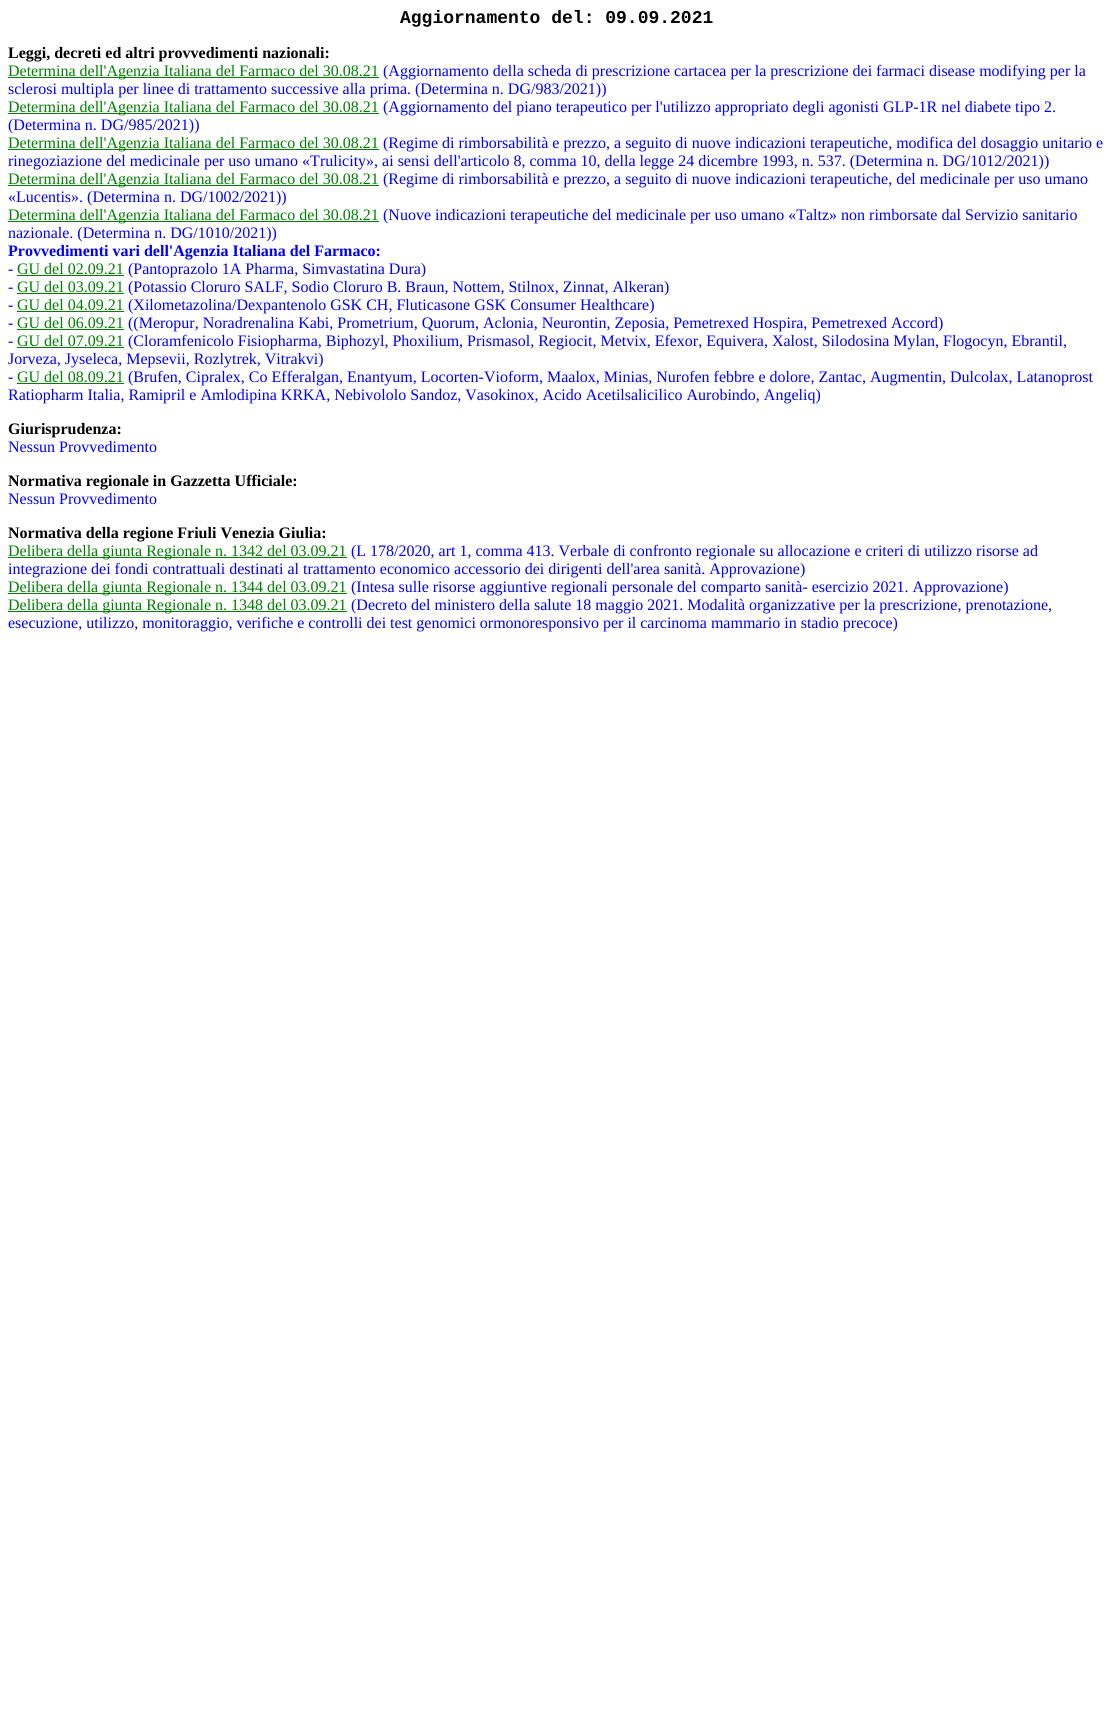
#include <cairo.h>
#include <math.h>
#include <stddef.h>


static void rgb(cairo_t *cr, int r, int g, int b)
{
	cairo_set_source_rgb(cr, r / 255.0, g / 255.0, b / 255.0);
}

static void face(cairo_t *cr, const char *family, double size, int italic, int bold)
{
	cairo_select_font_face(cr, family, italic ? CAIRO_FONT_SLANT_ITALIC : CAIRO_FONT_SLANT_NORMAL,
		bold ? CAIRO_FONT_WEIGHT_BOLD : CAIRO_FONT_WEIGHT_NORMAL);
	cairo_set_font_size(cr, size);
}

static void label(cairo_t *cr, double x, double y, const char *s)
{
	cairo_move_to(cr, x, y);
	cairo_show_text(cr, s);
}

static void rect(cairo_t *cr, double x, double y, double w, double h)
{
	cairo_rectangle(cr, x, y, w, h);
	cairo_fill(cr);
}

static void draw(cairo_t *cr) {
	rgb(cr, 255, 255, 255);
	cairo_paint(cr);
	face(cr, "Liberation Mono", 18, 0, 1);
	rgb(cr, 0, 0, 0);
	label(cr, 400, 23, "Aggiornamento del: 09.09.2021");
	face(cr, "Liberation Serif", 16, 0, 1);
	label(cr, 8, 58, "Leggi, decreti ed altri provvedimenti nazionali:");
	rgb(cr, 0, 128, 0);
	rect(cr, 8, 77, 371, 1);
	face(cr, "Liberation Serif", 16, 0, 0);
	label(cr, 8, 76, "Determina dell'Agenzia Italiana del Farmaco del 30.08.21");
	rgb(cr, 0, 0, 255);
	label(cr, 383, 76, "(Aggiornamento della scheda di prescrizione cartacea per la prescrizione dei farmaci disease modifying per la");
	label(cr, 8, 94, "sclerosi multipla per linee di trattamento successive alla prima. (Determina n. DG/983/2021))");
	rgb(cr, 0, 128, 0);
	rect(cr, 8, 113, 371, 1);
	label(cr, 8, 112, "Determina dell'Agenzia Italiana del Farmaco del 30.08.21");
	rgb(cr, 0, 0, 255);
	label(cr, 383, 112, "(Aggiornamento del piano terapeutico per l'utilizzo appropriato degli agonisti GLP-1R nel diabete tipo 2.");
	label(cr, 8, 130, "(Determina n. DG/985/2021))");
	rgb(cr, 0, 128, 0);
	rect(cr, 8, 149, 371, 1);
	label(cr, 8, 148, "Determina dell'Agenzia Italiana del Farmaco del 30.08.21");
	rgb(cr, 0, 0, 255);
	label(cr, 383, 148, "(Regime di rimborsabilità e prezzo, a seguito di nuove indicazioni terapeutiche, modifica del dosaggio unitario e");
	label(cr, 8, 166, "rinegoziazione del medicinale per uso umano «Trulicity», ai sensi dell'articolo 8, comma 10, della legge 24 dicembre 1993, n. 537. (Determina n. DG/1012/2021))");
	rgb(cr, 0, 128, 0);
	rect(cr, 8, 185, 371, 1);
	label(cr, 8, 184, "Determina dell'Agenzia Italiana del Farmaco del 30.08.21");
	rgb(cr, 0, 0, 255);
	label(cr, 383, 184, "(Regime di rimborsabilità e prezzo, a seguito di nuove indicazioni terapeutiche, del medicinale per uso umano");
	label(cr, 8, 202, "«Lucentis». (Determina n. DG/1002/2021))");
	rgb(cr, 0, 128, 0);
	rect(cr, 8, 221, 371, 1);
	label(cr, 8, 220, "Determina dell'Agenzia Italiana del Farmaco del 30.08.21");
	rgb(cr, 0, 0, 255);
	label(cr, 383, 220, "(Nuove indicazioni terapeutiche del medicinale per uso umano «Taltz» non rimborsate dal Servizio sanitario");
	label(cr, 8, 238, "nazionale. (Determina n. DG/1010/2021))");
	face(cr, "Liberation Serif", 16, 0, 1);
	label(cr, 8, 256, "Provvedimenti vari dell'Agenzia Italiana del Farmaco:");
	face(cr, "Liberation Serif", 16, 0, 0);
	label(cr, 8, 274, "-");
	rgb(cr, 0, 128, 0);
	label(cr, 17, 274, "GU del 02.09.21");
	rect(cr, 17, 275, 107, 1);
	rgb(cr, 0, 0, 255);
	label(cr, 128, 274, "(Pantoprazolo 1A Pharma, Simvastatina Dura)");
	label(cr, 8, 292, "-");
	rgb(cr, 0, 128, 0);
	label(cr, 17, 292, "GU del 03.09.21");
	rect(cr, 17, 293, 107, 1);
	rgb(cr, 0, 0, 255);
	label(cr, 128, 292, "(Potassio Cloruro SALF, Sodio Cloruro B. Braun, Nottem, Stilnox, Zinnat, Alkeran)");
	label(cr, 8, 310, "-");
	rgb(cr, 0, 128, 0);
	label(cr, 17, 310, "GU del 04.09.21");
	rect(cr, 17, 311, 107, 1);
	rgb(cr, 0, 0, 255);
	label(cr, 128, 310, "(Xilometazolina/Dexpantenolo GSK CH, Fluticasone GSK Consumer Healthcare)");
	label(cr, 8, 328, "-");
	rgb(cr, 0, 128, 0);
	label(cr, 17, 328, "GU del 06.09.21");
	rect(cr, 17, 329, 107, 1);
	rgb(cr, 0, 0, 255);
	label(cr, 128, 328, "((Meropur, Noradrenalina Kabi, Prometrium, Quorum, Aclonia, Neurontin, Zeposia, Pemetrexed Hospira, Pemetrexed Accord)");
	label(cr, 8, 346, "-");
	rgb(cr, 0, 128, 0);
	label(cr, 17, 346, "GU del 07.09.21");
	rect(cr, 17, 347, 107, 1);
	rgb(cr, 0, 0, 255);
	label(cr, 128, 346, "(Cloramfenicolo Fisiopharma, Biphozyl, Phoxilium, Prismasol, Regiocit, Metvix, Efexor, Equivera, Xalost, Silodosina Mylan, Flogocyn, Ebrantil,");
	label(cr, 8, 364, "Jorveza, Jyseleca, Mepsevii, Rozlytrek, Vitrakvi)");
	label(cr, 8, 382, "-");
	rgb(cr, 0, 128, 0);
	label(cr, 17, 382, "GU del 08.09.21");
	rect(cr, 17, 383, 107, 1);
	rgb(cr, 0, 0, 255);
	label(cr, 128, 382, "(Brufen, Cipralex, Co Efferalgan, Enantyum, Locorten-Vioform, Maalox, Minias, Nurofen febbre e dolore, Zantac, Augmentin, Dulcolax, Latanoprost");
	label(cr, 8, 400, "Ratiopharm Italia, Ramipril e Amlodipina KRKA, Nebivololo Sandoz, Vasokinox, Acido Acetilsalicilico Aurobindo, Angeliq)");
	face(cr, "Liberation Serif", 16, 0, 1);
	rgb(cr, 0, 0, 0);
	label(cr, 8, 434, "Giurisprudenza:");
	face(cr, "Liberation Serif", 16, 0, 0);
	rgb(cr, 0, 0, 255);
	label(cr, 8, 452, "Nessun Provvedimento");
	face(cr, "Liberation Serif", 16, 0, 1);
	rgb(cr, 0, 0, 0);
	label(cr, 8, 486, "Normativa regionale in Gazzetta Ufficiale:");
	face(cr, "Liberation Serif", 16, 0, 0);
	rgb(cr, 0, 0, 255);
	label(cr, 8, 504, "Nessun Provvedimento");
	face(cr, "Liberation Serif", 16, 0, 1);
	rgb(cr, 0, 0, 0);
	label(cr, 8, 538, "Normativa della regione Friuli Venezia Giulia:");
	rgb(cr, 0, 128, 0);
	rect(cr, 8, 557, 339, 1);
	face(cr, "Liberation Serif", 16, 0, 0);
	label(cr, 8, 556, "Delibera della giunta Regionale n. 1342 del 03.09.21");
	rgb(cr, 0, 0, 255);
	label(cr, 351, 556, "(L 178/2020, art 1, comma 413. Verbale di confronto regionale su allocazione e criteri di utilizzo risorse ad");
	label(cr, 8, 574, "integrazione dei fondi contrattuali destinati al trattamento economico accessorio dei dirigenti dell'area sanità. Approvazione)");
	rgb(cr, 0, 128, 0);
	rect(cr, 8, 593, 339, 1);
	label(cr, 8, 592, "Delibera della giunta Regionale n. 1344 del 03.09.21");
	rgb(cr, 0, 0, 255);
	label(cr, 351, 592, "(Intesa sulle risorse aggiuntive regionali personale del comparto sanità- esercizio 2021. Approvazione)");
	rgb(cr, 0, 128, 0);
	rect(cr, 8, 611, 339, 1);
	label(cr, 8, 610, "Delibera della giunta Regionale n. 1348 del 03.09.21");
	rgb(cr, 0, 0, 255);
	label(cr, 351, 610, "(Decreto del ministero della salute 18 maggio 2021. Modalità organizzative per la prescrizione, prenotazione,");
	label(cr, 8, 628, "esecuzione, utilizzo, monitoraggio, verifiche e controlli dei test genomici ormonoresponsivo per il carcinoma mammario in stadio precoce)");
}

int main(void) {
	cairo_surface_t *surface = cairo_image_surface_create(CAIRO_FORMAT_RGB24, 1113, 1716);
	cairo_t *cr = cairo_create(surface);
	cairo_font_options_t *options = cairo_font_options_create();
	cairo_font_options_set_hint_metrics(options, CAIRO_HINT_METRICS_OFF);
	cairo_font_options_set_hint_style(options, CAIRO_HINT_STYLE_NONE);
	cairo_set_font_options(cr, options);
	cairo_set_miter_limit(cr, 4);
	draw(cr);
	cairo_surface_write_to_png(surface, "render.png");
	cairo_font_options_destroy(options);
	cairo_destroy(cr);
	cairo_surface_destroy(surface);
	return 0;
}
